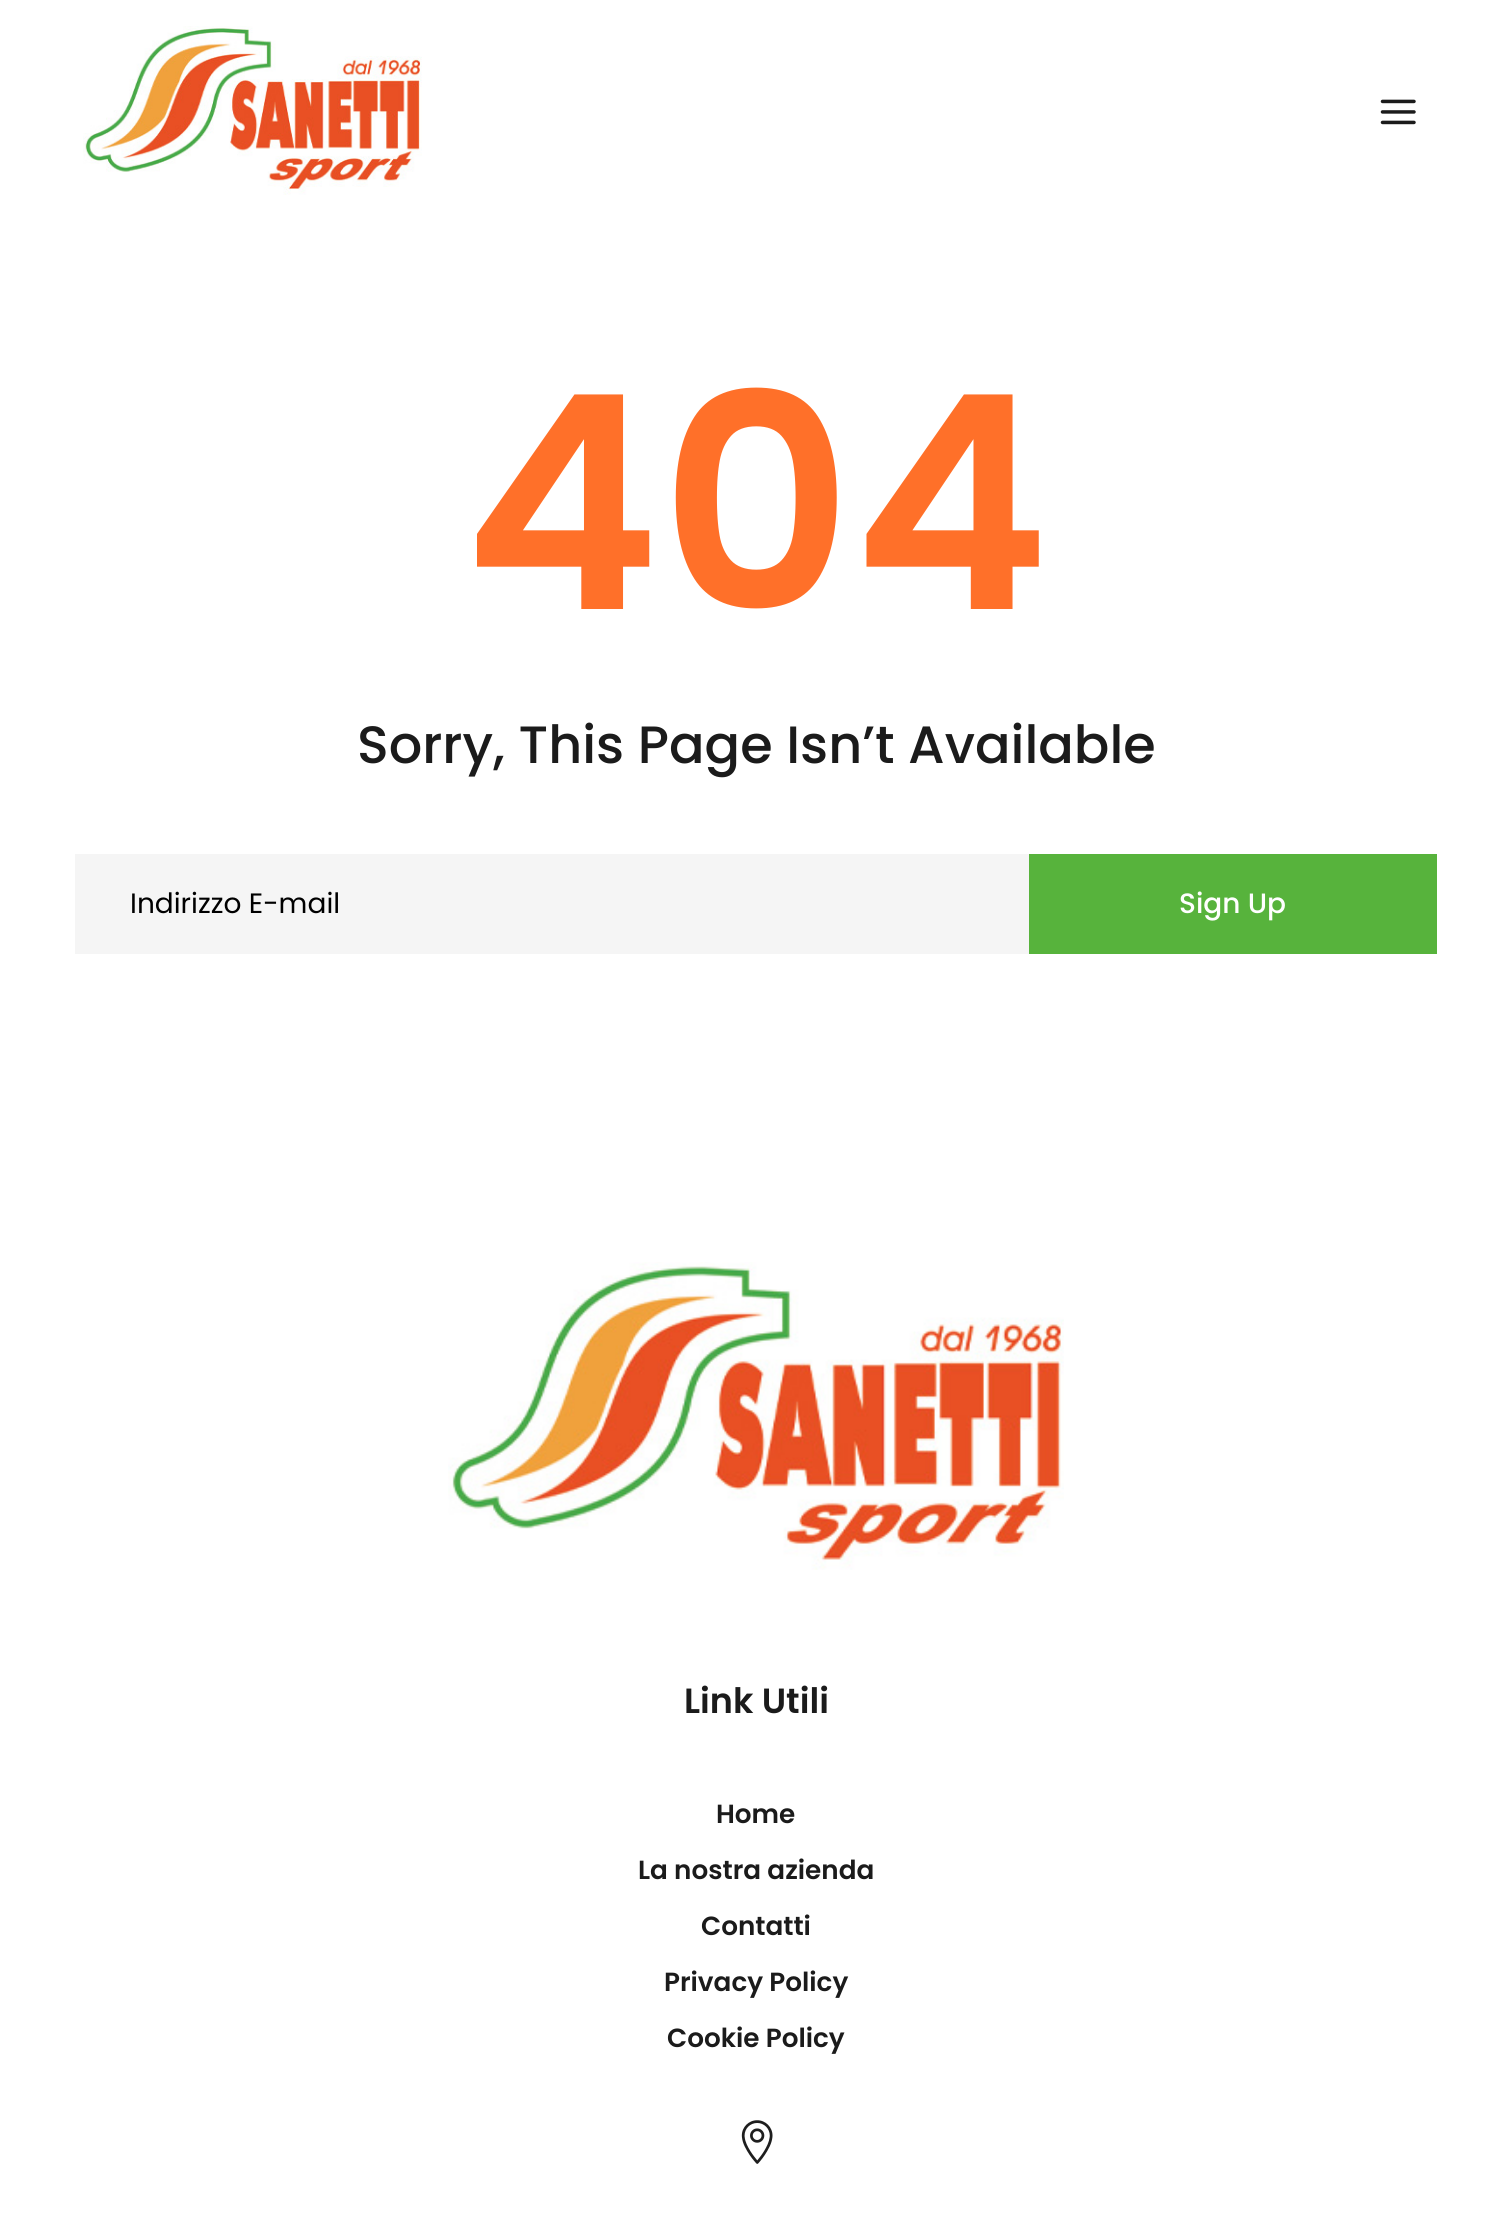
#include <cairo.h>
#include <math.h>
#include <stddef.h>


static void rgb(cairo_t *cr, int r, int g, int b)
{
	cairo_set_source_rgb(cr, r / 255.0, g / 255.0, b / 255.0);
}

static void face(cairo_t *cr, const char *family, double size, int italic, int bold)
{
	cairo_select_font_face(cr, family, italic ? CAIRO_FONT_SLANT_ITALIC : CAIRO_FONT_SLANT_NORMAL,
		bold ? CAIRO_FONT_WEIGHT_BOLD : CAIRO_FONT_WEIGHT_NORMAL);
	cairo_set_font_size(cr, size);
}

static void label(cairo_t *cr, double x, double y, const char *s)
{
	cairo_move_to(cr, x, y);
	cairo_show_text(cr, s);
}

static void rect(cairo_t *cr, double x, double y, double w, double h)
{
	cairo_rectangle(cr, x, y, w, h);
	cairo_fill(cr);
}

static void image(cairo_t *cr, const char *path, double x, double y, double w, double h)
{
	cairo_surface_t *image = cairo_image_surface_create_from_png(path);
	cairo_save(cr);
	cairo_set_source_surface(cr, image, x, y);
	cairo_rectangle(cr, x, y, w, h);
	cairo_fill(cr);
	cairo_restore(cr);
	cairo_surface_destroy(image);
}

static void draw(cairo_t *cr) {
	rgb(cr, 255, 255, 255);
	cairo_paint(cr);
	image(cr, "image0.png", 83, 26, 339, 169);
	image(cr, "image1.png", 1380, 99, 36, 26);
	face(cr, "Poppins SemiBold", 298, 0, 0);
	rgb(cr, 255, 112, 41);
	label(cr, 463, 609, "404");
	face(cr, "Poppins Medium", 52.5, 0, 0);
	rgb(cr, 27, 27, 27);
	label(cr, 357, 763, "Sorry, This Page Isn’t Available");
	rgb(cr, 245, 245, 245);
	rect(cr, 75, 854, 954, 100);
	face(cr, "Poppins", 28, 0, 0);
	rgb(cr, 0, 0, 0);
	label(cr, 130, 913, "Indirizzo E-mail");
	rgb(cr, 87, 179, 60);
	rect(cr, 1029, 854, 408, 100);
	face(cr, "Poppins Medium", 28, 0, 0);
	rgb(cr, 255, 255, 255);
	label(cr, 1179, 913, "Sign Up");
	image(cr, "image2.png", 448, 1262, 616, 308);
	face(cr, "Poppins SemiBold", 35, 0, 0);
	rgb(cr, 27, 27, 27);
	label(cr, 684, 1713, "Link Utili");
	face(cr, "Poppins SemiBold", 26.25, 0, 0);
	label(cr, 716, 1823, "Home");
	label(cr, 638, 1879, "La nostra azienda");
	label(cr, 701, 1935, "Contatti");
	label(cr, 664, 1991, "Privacy Policy");
	label(cr, 667, 2047, "Cookie Policy");
	image(cr, "image3.png", 741, 2120, 32, 44);
}

int main(void) {
	cairo_surface_t *surface = cairo_image_surface_create(CAIRO_FORMAT_RGB24, 1512, 2227);
	cairo_t *cr = cairo_create(surface);
	cairo_font_options_t *options = cairo_font_options_create();
	cairo_font_options_set_hint_metrics(options, CAIRO_HINT_METRICS_OFF);
	cairo_font_options_set_hint_style(options, CAIRO_HINT_STYLE_NONE);
	cairo_set_font_options(cr, options);
	cairo_set_miter_limit(cr, 4);
	draw(cr);
	cairo_surface_write_to_png(surface, "render.png");
	cairo_font_options_destroy(options);
	cairo_destroy(cr);
	cairo_surface_destroy(surface);
	return 0;
}
